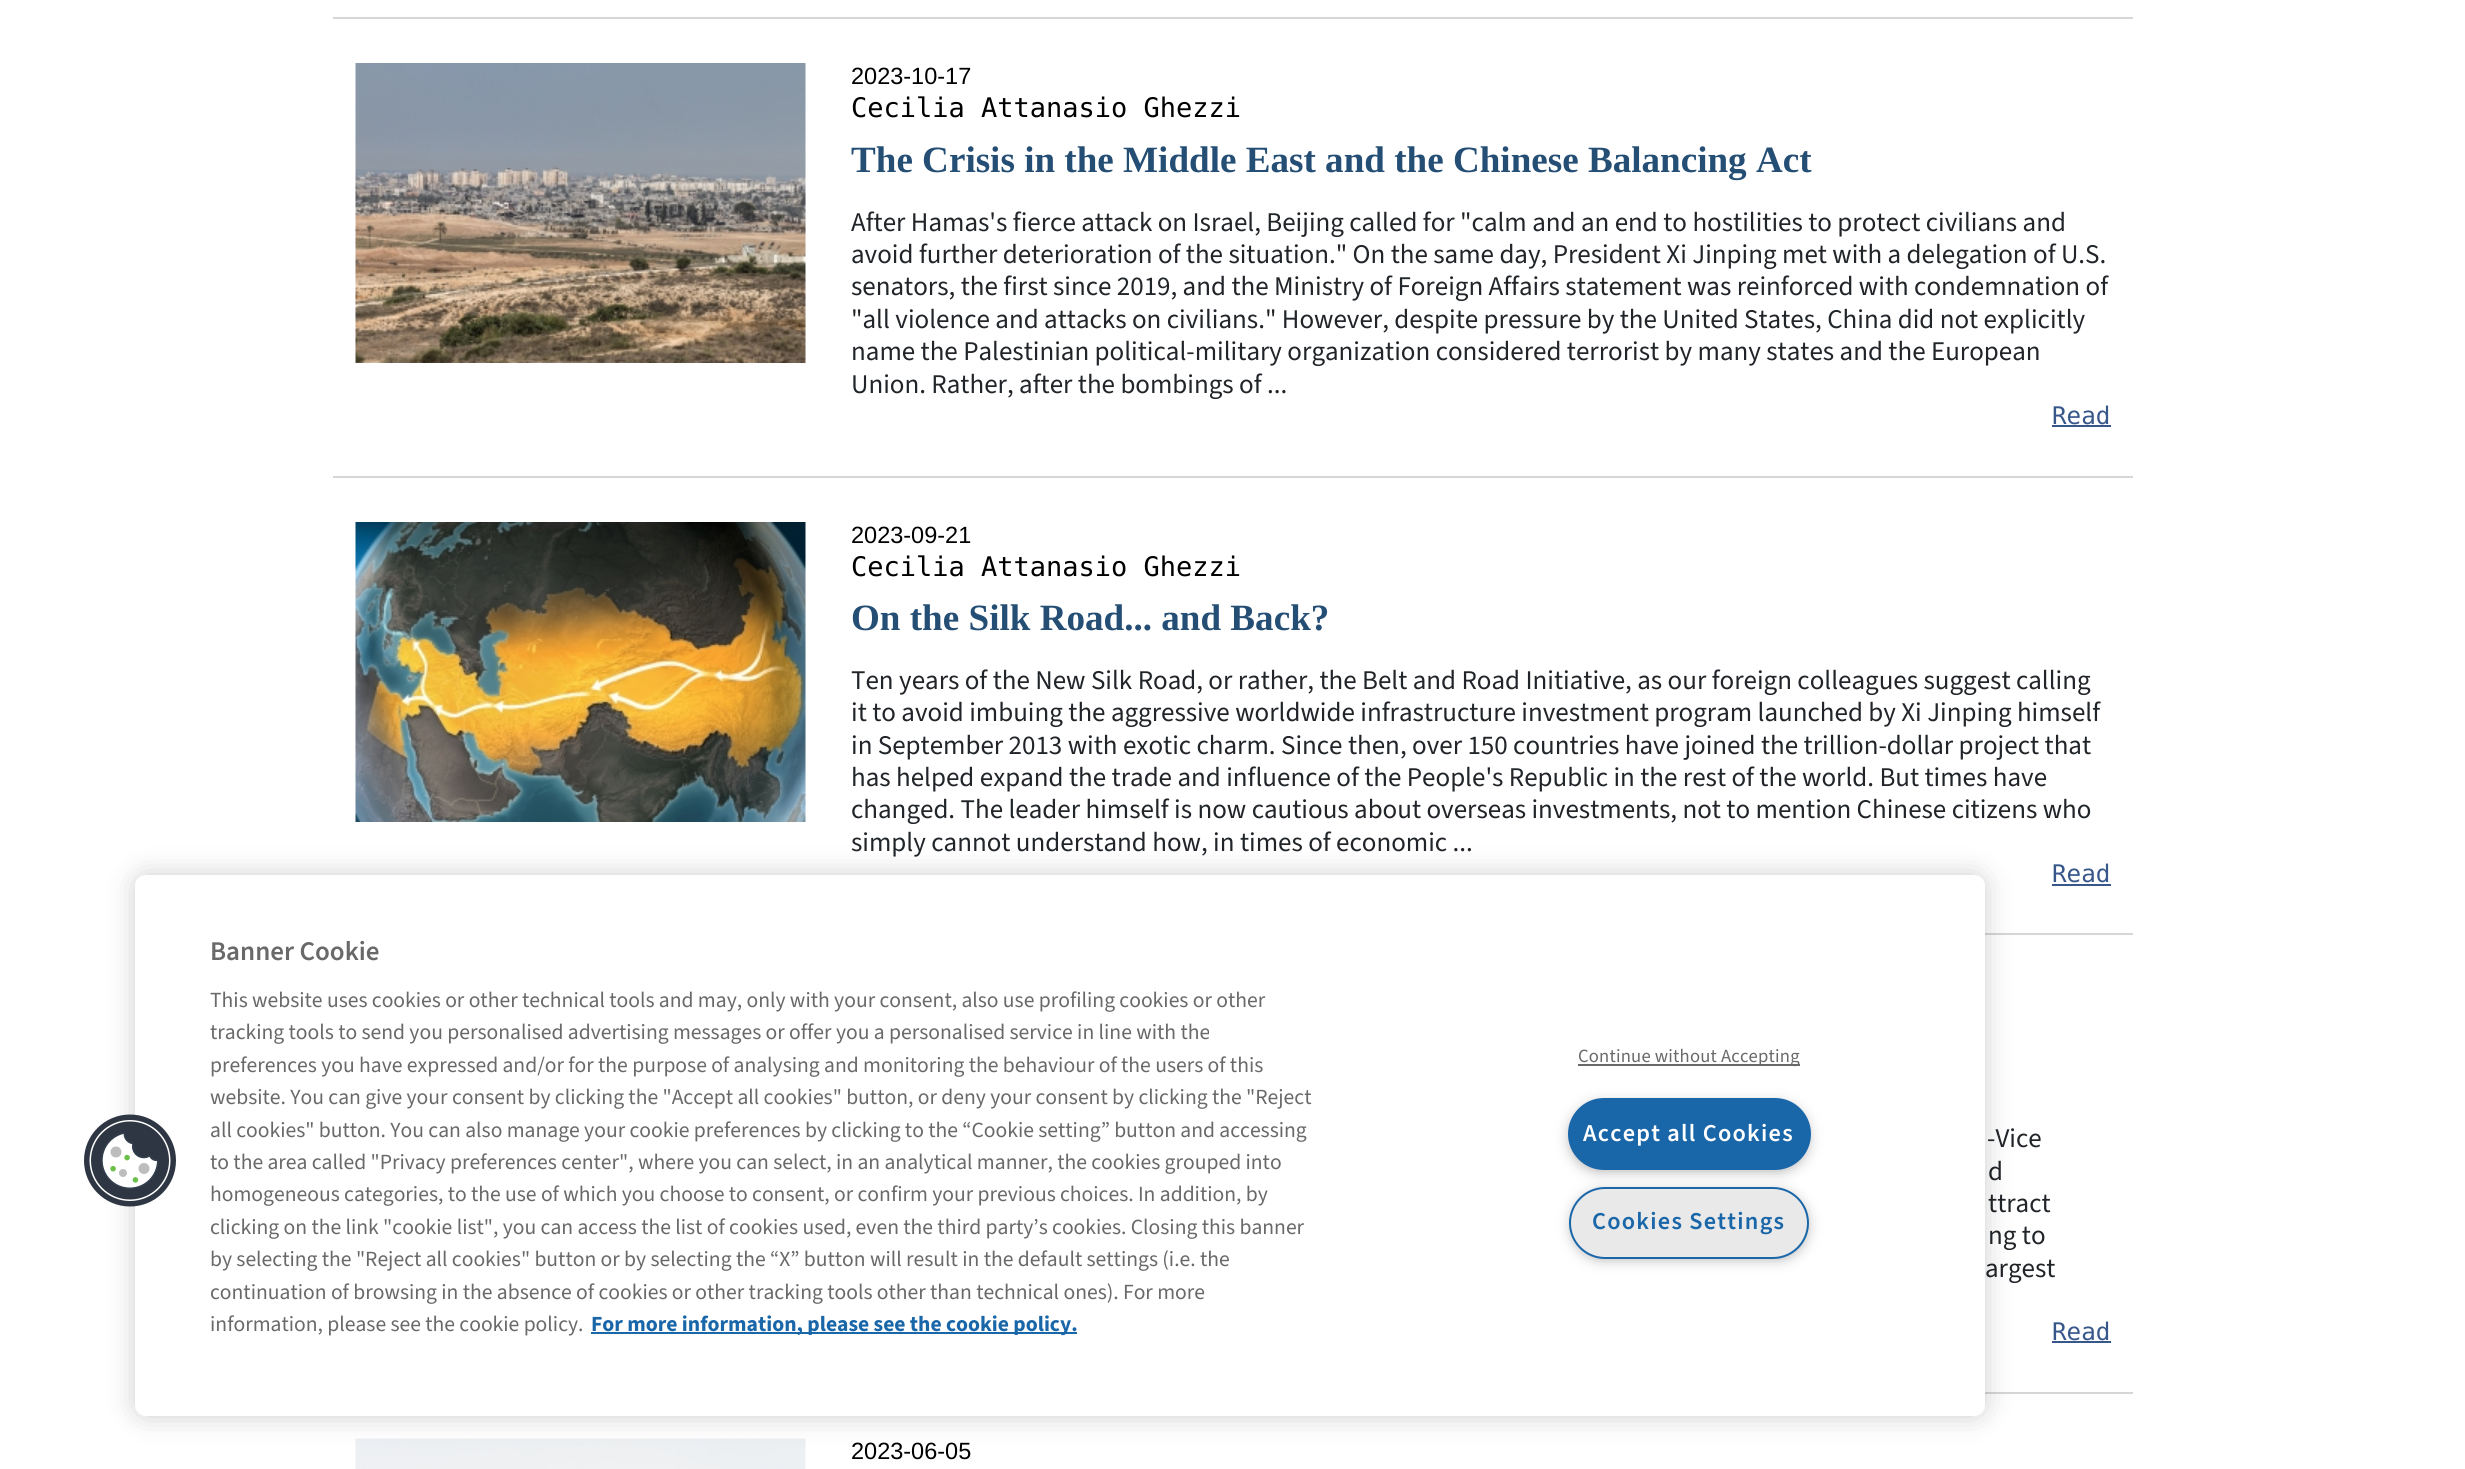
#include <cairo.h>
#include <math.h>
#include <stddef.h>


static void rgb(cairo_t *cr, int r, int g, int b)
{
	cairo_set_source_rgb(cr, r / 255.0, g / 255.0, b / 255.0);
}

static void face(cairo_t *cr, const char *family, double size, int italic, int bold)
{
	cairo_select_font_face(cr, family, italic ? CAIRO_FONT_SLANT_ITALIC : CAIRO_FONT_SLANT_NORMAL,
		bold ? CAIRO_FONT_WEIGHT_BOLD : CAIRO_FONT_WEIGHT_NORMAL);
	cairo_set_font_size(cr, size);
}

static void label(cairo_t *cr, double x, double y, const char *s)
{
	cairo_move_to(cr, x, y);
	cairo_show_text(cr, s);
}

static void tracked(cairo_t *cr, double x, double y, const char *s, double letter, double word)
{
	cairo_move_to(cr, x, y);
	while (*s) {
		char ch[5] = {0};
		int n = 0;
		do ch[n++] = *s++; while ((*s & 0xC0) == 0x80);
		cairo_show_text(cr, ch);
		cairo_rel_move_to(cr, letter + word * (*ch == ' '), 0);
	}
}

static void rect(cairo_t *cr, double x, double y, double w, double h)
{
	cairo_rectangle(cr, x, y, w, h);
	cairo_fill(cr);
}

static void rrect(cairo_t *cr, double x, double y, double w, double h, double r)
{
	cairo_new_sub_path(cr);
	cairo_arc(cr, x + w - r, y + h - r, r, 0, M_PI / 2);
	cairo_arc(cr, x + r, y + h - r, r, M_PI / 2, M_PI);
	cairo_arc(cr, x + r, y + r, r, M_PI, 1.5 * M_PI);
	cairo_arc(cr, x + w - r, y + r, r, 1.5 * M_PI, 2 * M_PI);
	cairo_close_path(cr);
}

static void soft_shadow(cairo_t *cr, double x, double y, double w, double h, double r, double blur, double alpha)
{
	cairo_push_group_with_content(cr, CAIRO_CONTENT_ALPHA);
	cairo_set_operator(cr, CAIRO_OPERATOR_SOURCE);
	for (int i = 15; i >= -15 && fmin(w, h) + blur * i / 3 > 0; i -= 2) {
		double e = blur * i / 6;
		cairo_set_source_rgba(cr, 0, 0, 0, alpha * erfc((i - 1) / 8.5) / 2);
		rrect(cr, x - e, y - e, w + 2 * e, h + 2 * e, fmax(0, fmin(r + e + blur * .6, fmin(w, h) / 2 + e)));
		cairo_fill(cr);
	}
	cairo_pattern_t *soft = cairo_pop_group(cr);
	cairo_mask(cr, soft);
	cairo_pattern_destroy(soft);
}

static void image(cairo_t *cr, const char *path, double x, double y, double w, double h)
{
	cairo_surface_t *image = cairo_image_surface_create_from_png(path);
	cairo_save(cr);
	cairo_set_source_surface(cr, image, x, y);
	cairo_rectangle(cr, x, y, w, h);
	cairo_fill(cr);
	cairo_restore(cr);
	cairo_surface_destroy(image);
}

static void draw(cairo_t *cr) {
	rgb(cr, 255, 255, 255);
	cairo_paint(cr);
	rgb(cr, 214, 214, 216);
	rect(cr, 333, 17, 1800, 2);
	rect(cr, 333, 476, 1800, 2);
	image(cr, "image0.png", 355, 63, 451, 300);
	face(cr, "Liberation Sans", 23.5, 0, 0);
	rgb(cr, 0, 0, 0);
	label(cr, 851, 84, "2023-10-17");
	face(cr, "DejaVu Sans Mono", 27, 0, 0);
	label(cr, 851, 117, "Cecilia Attanasio Ghezzi");
	face(cr, "Liberation Serif", 37.1, 0, 1);
	rgb(cr, 37, 78, 117);
	label(cr, 851, 172, "The Crisis in the Middle East and the Chinese Balancing Act");
	face(cr, "Source Sans 3", 27, 0, 0);
	rgb(cr, 33, 37, 41);
	label(cr, 851, 231, "After Hamas's fierce attack on Israel, Beijing called for \"calm and an end to hostilities to protect civilians and");
	label(cr, 851, 263, "avoid further deterioration of the situation.\" On the same day, President Xi Jinping met with a delegation of U.S.");
	label(cr, 851, 295, "senators, the first since 2019, and the Ministry of Foreign Affairs statement was reinforced with condemnation of");
	label(cr, 851, 328, "\"all violence and attacks on civilians.\" However, despite pressure by the United States, China did not explicitly");
	label(cr, 851, 360, "name the Palestinian political-military organization considered terrorist by many states and the European");
	label(cr, 851, 393, "Union. Rather, after the bombings of ...");
	face(cr, "DejaVu Sans Mono", 24.25, 0, 0);
	rgb(cr, 55, 87, 139);
	label(cr, 2052, 424, "Read");
	rect(cr, 2052, 425, 59, 2);
	rgb(cr, 214, 214, 216);
	rect(cr, 1985, 933, 148, 2);
	image(cr, "image1.png", 355, 522, 451, 300);
	face(cr, "Liberation Sans", 23.5, 0, 0);
	rgb(cr, 0, 0, 0);
	label(cr, 851, 543, "2023-09-21");
	face(cr, "DejaVu Sans Mono", 27, 0, 0);
	label(cr, 851, 576, "Cecilia Attanasio Ghezzi");
	face(cr, "Liberation Serif", 37.1, 0, 1);
	rgb(cr, 37, 78, 117);
	label(cr, 851, 630, "On the Silk Road... and Back?");
	face(cr, "Source Sans 3", 27, 0, 0);
	rgb(cr, 33, 37, 41);
	label(cr, 851, 689, "Ten years of the New Silk Road, or rather, the Belt and Road Initiative, as our foreign colleagues suggest calling");
	label(cr, 851, 721, "it to avoid imbuing the aggressive worldwide infrastructure investment program launched by Xi Jinping himself");
	label(cr, 851, 754, "in September 2013 with exotic charm. Since then, over 150 countries have joined the trillion-dollar project that");
	label(cr, 851, 786, "has helped expand the trade and influence of the People's Republic in the rest of the world. But times have");
	label(cr, 851, 818, "changed. The leader himself is now cautious about overseas investments, not to mention Chinese citizens who");
	label(cr, 851, 851, "simply cannot understand how, in times of economic ...");
	face(cr, "DejaVu Sans Mono", 24.25, 0, 0);
	rgb(cr, 55, 87, 139);
	label(cr, 2052, 882, "Read");
	rect(cr, 2052, 884, 59, 2);
	rgb(cr, 214, 214, 216);
	rect(cr, 1985, 1392, 148, 2);
	face(cr, "Source Sans 3", 27, 0, 0);
	rgb(cr, 33, 37, 41);
	label(cr, 1987, 1147, "-Vice");
	label(cr, 1988, 1180, "d");
	label(cr, 1988, 1212, "ttract");
	label(cr, 1988, 1244, "ng to");
	label(cr, 1985, 1277, "argest");
	face(cr, "DejaVu Sans Mono", 24.25, 0, 0);
	rgb(cr, 55, 87, 139);
	label(cr, 2052, 1340, "Read");
	rect(cr, 2052, 1341, 59, 2);
	image(cr, "image2.png", 355, 1438, 451, 31);
	face(cr, "Liberation Sans", 23.5, 0, 0);
	rgb(cr, 0, 0, 0);
	label(cr, 851, 1459, "2023-06-05");
	rgb(cr, 0, 0, 0);
	soft_shadow(cr, 135, 875, 1850, 541, 11, 13.5, 0.2);
	rgb(cr, 255, 255, 255);
	rrect(cr, 135, 875, 1850, 541, 11);
	cairo_fill(cr);
	image(cr, "image3.png", 84, 1114, 92, 93);
	face(cr, "Source Sans 3 SemiBold", 27, 0, 0);
	rgb(cr, 105, 105, 105);
	label(cr, 210, 960, "Banner Cookie");
	face(cr, "Source Sans 3", 21.6, 0, 0);
	label(cr, 210, 1007, "This website uses cookies or other technical tools and may, only with your consent, also use profiling cookies or other");
	label(cr, 210, 1039, "tracking tools to send you personalised advertising messages or offer you a personalised service in line with the");
	label(cr, 210, 1072, "preferences you have expressed and/or for the purpose of analysing and monitoring the behaviour of the users of this");
	label(cr, 210, 1104, "website. You can give your consent by clicking the \"Accept all cookies\" button, or deny your consent by clicking the \"Reject");
	label(cr, 210, 1137, "all cookies\" button. You can also manage your cookie preferences by clicking to the “Cookie setting” button and accessing");
	label(cr, 210, 1169, "to the area called \"Privacy preferences center\", where you can select, in an analytical manner, the cookies grouped into");
	label(cr, 210, 1201, "homogeneous categories, to the use of which you choose to consent, or confirm your previous choices. In addition, by");
	label(cr, 210, 1234, "clicking on the link \"cookie list\", you can access the list of cookies used, even the third party’s cookies. Closing this banner");
	label(cr, 210, 1266, "by selecting the \"Reject all cookies\" button or by selecting the “X” button will result in the default settings (i.e. the");
	label(cr, 210, 1299, "continuation of browsing in the absence of cookies or other tracking tools other than technical ones). For more");
	label(cr, 210, 1331, "information, please see the cookie policy.");
	rgb(cr, 25, 102, 169);
	rect(cr, 591, 1332, 486, 2);
	face(cr, "Source Sans 3", 21.6, 0, 1);
	label(cr, 591, 1331, "For more information, please see the cookie policy.");
	rgb(cr, 105, 105, 105);
	rect(cr, 1578, 1064, 222, 2);
	face(cr, "Source Sans 3", 18.6, 0, 0);
	tracked(cr, 1578, 1062, "Continue without Accepting", 0.2, 0);
	rgb(cr, 153, 153, 153);
	soft_shadow(cr, 1572, 1106, 234, 63, 31.5, 7.5, 1);
	rgb(cr, 25, 102, 169);
	rrect(cr, 1569, 1099, 241, 70, 35);
	cairo_fill_preserve(cr);
	cairo_stroke(cr);
	face(cr, "Source Sans 3 SemiBold", 24.25, 0, 0);
	rgb(cr, 255, 255, 255);
	tracked(cr, 1583, 1141, "Accept all Cookies", 1.25, 0);
	rgb(cr, 153, 153, 153);
	soft_shadow(cr, 1574, 1194, 231, 63, 31.5, 7.5, 1);
	rgb(cr, 233, 233, 233);
	rrect(cr, 1570, 1188, 238, 70, 35);
	cairo_fill_preserve(cr);
	rgb(cr, 25, 102, 169);
	cairo_stroke(cr);
	tracked(cr, 1592, 1229, "Cookies Settings", 1.25, 0);
}

int main(void) {
	cairo_surface_t *surface = cairo_image_surface_create(CAIRO_FORMAT_RGB24, 2465, 1469);
	cairo_t *cr = cairo_create(surface);
	cairo_font_options_t *options = cairo_font_options_create();
	cairo_font_options_set_hint_metrics(options, CAIRO_HINT_METRICS_OFF);
	cairo_font_options_set_hint_style(options, CAIRO_HINT_STYLE_NONE);
	cairo_set_font_options(cr, options);
	cairo_set_miter_limit(cr, 4);
	draw(cr);
	cairo_surface_write_to_png(surface, "render.png");
	cairo_font_options_destroy(options);
	cairo_destroy(cr);
	cairo_surface_destroy(surface);
	return 0;
}
